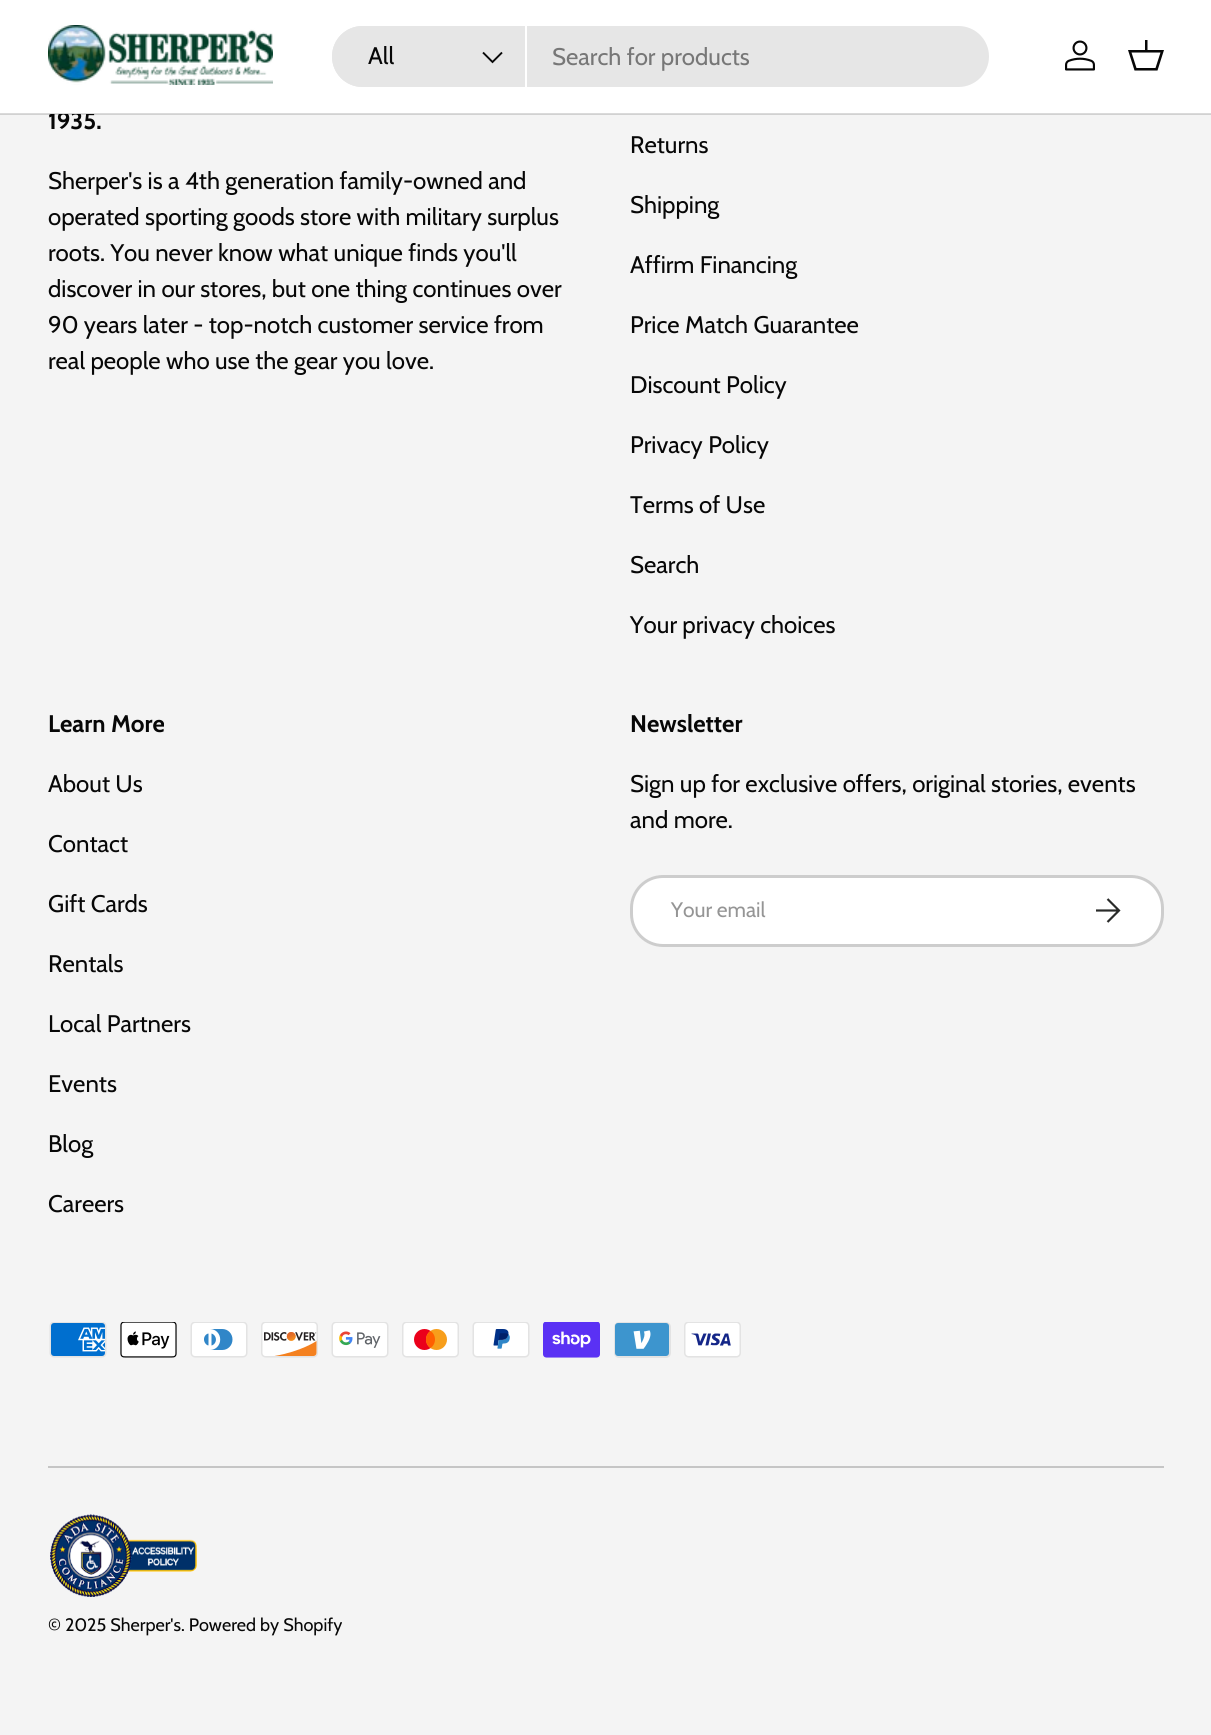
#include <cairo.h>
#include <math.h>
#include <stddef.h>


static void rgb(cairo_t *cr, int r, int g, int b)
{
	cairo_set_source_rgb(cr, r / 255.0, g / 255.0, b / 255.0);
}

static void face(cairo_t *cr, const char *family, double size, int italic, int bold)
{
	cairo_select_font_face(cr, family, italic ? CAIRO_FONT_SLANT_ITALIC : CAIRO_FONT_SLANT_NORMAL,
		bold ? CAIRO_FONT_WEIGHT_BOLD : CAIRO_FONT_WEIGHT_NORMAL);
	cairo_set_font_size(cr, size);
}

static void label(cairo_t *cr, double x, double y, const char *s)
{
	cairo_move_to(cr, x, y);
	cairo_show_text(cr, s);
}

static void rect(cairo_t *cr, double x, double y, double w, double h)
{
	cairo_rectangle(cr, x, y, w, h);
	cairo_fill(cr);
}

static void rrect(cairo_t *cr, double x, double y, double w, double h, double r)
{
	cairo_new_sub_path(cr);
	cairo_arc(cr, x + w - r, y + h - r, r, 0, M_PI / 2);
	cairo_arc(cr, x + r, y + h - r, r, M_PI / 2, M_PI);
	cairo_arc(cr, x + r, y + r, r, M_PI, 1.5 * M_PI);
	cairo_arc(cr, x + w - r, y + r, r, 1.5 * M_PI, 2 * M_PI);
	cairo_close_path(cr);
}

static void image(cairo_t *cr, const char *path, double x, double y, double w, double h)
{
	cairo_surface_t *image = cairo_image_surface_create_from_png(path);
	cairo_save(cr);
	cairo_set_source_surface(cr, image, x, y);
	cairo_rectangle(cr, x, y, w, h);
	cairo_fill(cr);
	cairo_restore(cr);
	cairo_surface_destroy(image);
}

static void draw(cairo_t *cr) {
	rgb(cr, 244, 244, 244);
	cairo_paint(cr);
	face(cr, "Cabin", 24, 0, 1);
	rgb(cr, 7, 7, 7);
	label(cr, 48, 129, "1935.");
	rgb(cr, 255, 255, 255);
	rect(cr, 0, 0, 1211, 114);
	cairo_set_source_rgba(cr, 0.027, 0.027, 0.027, 0.15);
	rect(cr, 0, 113, 1211, 2);
	image(cr, "image0.png", 48, 25, 225, 60);
	rgb(cr, 230, 230, 230);
	rrect(cr, 332, 26, 657, 61, 30.5);
	cairo_fill(cr);
	cairo_new_path(cr);
	cairo_move_to(cr, 362.5, 26);
	cairo_line_to(cr, 527, 26);
	cairo_line_to(cr, 527, 87);
	cairo_line_to(cr, 362.5, 87);
	cairo_curve_to(cr, 345.5, 87, 332, 73.5, 332, 56.5);
	cairo_curve_to(cr, 332, 39.5, 345.5, 26, 362.5, 26);
	cairo_close_path(cr);
	cairo_fill(cr);
	rgb(cr, 255, 255, 255);
	rect(cr, 525, 26, 2, 61);
	face(cr, "Cabin", 24, 0, 0);
	rgb(cr, 7, 7, 7);
	label(cr, 368, 64, "All");
	cairo_new_path(cr);
	cairo_move_to(cr, 502, 52.5);
	cairo_line_to(cr, 492.5, 62);
	cairo_line_to(cr, 483, 52.5);
	cairo_set_line_width(cr, 1.9);
	cairo_stroke(cr);
	rgb(cr, 119, 119, 119);
	label(cr, 552, 65, "Search for products");
	image(cr, "image1.png", 1065, 40, 30, 31);
	rgb(cr, 7, 7, 7);
	cairo_new_path(cr);
	cairo_move_to(cr, 1145, 50);
	cairo_line_to(cr, 1145, 40);
	cairo_line_to(cr, 1147.5, 40);
	cairo_line_to(cr, 1147.5, 50);
	cairo_line_to(cr, 1164, 50);
	cairo_line_to(cr, 1157.5, 70.5);
	cairo_line_to(cr, 1134.5, 70.5);
	cairo_line_to(cr, 1128, 50);
	cairo_close_path(cr);
	cairo_move_to(cr, 1131.5, 52.5);
	cairo_line_to(cr, 1136.5, 68);
	cairo_line_to(cr, 1155.5, 68);
	cairo_line_to(cr, 1160.5, 52.5);
	cairo_close_path(cr);
	cairo_fill(cr);
	label(cr, 48, 189, "Sherper's is a 4th generation family-owned and");
	label(cr, 48, 225, "operated sporting goods store with military surplus");
	label(cr, 48, 261, "roots. You never know what unique finds you'll");
	label(cr, 48, 297, "discover in our stores, but one thing continues over");
	label(cr, 48, 333, "90 years later - top-notch customer service from");
	label(cr, 48, 369, "real people who use the gear you love.");
	label(cr, 630, 153, "Returns");
	label(cr, 630, 213, "Shipping");
	label(cr, 630, 273, "Affirm Financing");
	label(cr, 630, 333, "Price Match Guarantee");
	label(cr, 630, 393, "Discount Policy");
	label(cr, 630, 453, "Privacy Policy");
	label(cr, 630, 513, "Terms of Use");
	label(cr, 630, 573, "Search");
	label(cr, 630, 633, "Your privacy choices");
	face(cr, "Cabin", 24, 0, 1);
	label(cr, 48, 732, "Learn More");
	face(cr, "Cabin", 24, 0, 0);
	label(cr, 48, 792, "About Us");
	label(cr, 48, 852, "Contact");
	label(cr, 48, 912, "Gift Cards");
	label(cr, 48, 972, "Rentals");
	label(cr, 48, 1032, "Local Partners");
	label(cr, 48, 1092, "Events");
	label(cr, 48, 1152, "Blog");
	label(cr, 48, 1212, "Careers");
	face(cr, "Cabin", 24, 0, 1);
	label(cr, 630, 732, "Newsletter");
	face(cr, "Cabin", 24, 0, 0);
	label(cr, 630, 792, "Sign up for exclusive offers, original stories, events");
	label(cr, 630, 828, "and more.");
	rgb(cr, 255, 255, 255);
	rrect(cr, 630, 875, 534, 72, 33);
	cairo_fill(cr);
	rrect(cr, 631.5, 876.5, 531, 69, 31.5);
	cairo_set_source_rgba(cr, 0.027, 0.027, 0.027, 0.2);
	cairo_set_line_width(cr, 3);
	cairo_stroke(cr);
	face(cr, "Cabin", 21, 0, 0);
	rgb(cr, 149, 149, 149);
	label(cr, 671, 917, "Your email");
	cairo_new_path(cr);
	cairo_move_to(cr, 1096, 910.5);
	cairo_line_to(cr, 1118, 910.5);
	cairo_move_to(cr, 1107.5, 899);
	cairo_line_to(cr, 1119, 910.5);
	cairo_line_to(cr, 1107.5, 922);
	rgb(cr, 42, 43, 42);
	cairo_set_line_width(cr, 2.2);
	cairo_stroke(cr);
	image(cr, "image2.png", 49, 1322, 58, 36);
	image(cr, "image3.png", 120, 1322, 57, 36);
	image(cr, "image4.png", 190, 1322, 58, 36);
	image(cr, "image5.png", 261, 1322, 57, 36);
	image(cr, "image6.png", 331, 1322, 58, 36);
	image(cr, "image7.png", 402, 1322, 57, 36);
	image(cr, "image8.png", 472, 1322, 58, 36);
	image(cr, "image9.png", 543, 1322, 57, 36);
	image(cr, "image10.png", 614, 1322, 57, 36);
	image(cr, "image11.png", 684, 1322, 57, 36);
	rgb(cr, 197, 197, 197);
	rect(cr, 48, 1466, 1116, 2);
	image(cr, "image12.png", 50, 1514, 147, 83);
	face(cr, "Cabin", 18, 0, 0);
	rgb(cr, 7, 7, 7);
	label(cr, 48, 1631, "© 2025 Sherper's. Powered by Shopify");
}

int main(void) {
	cairo_surface_t *surface = cairo_image_surface_create(CAIRO_FORMAT_RGB24, 1211, 1735);
	cairo_t *cr = cairo_create(surface);
	cairo_font_options_t *options = cairo_font_options_create();
	cairo_font_options_set_hint_metrics(options, CAIRO_HINT_METRICS_OFF);
	cairo_font_options_set_hint_style(options, CAIRO_HINT_STYLE_NONE);
	cairo_set_font_options(cr, options);
	cairo_set_miter_limit(cr, 4);
	draw(cr);
	cairo_surface_write_to_png(surface, "render.png");
	cairo_font_options_destroy(options);
	cairo_destroy(cr);
	cairo_surface_destroy(surface);
	return 0;
}
